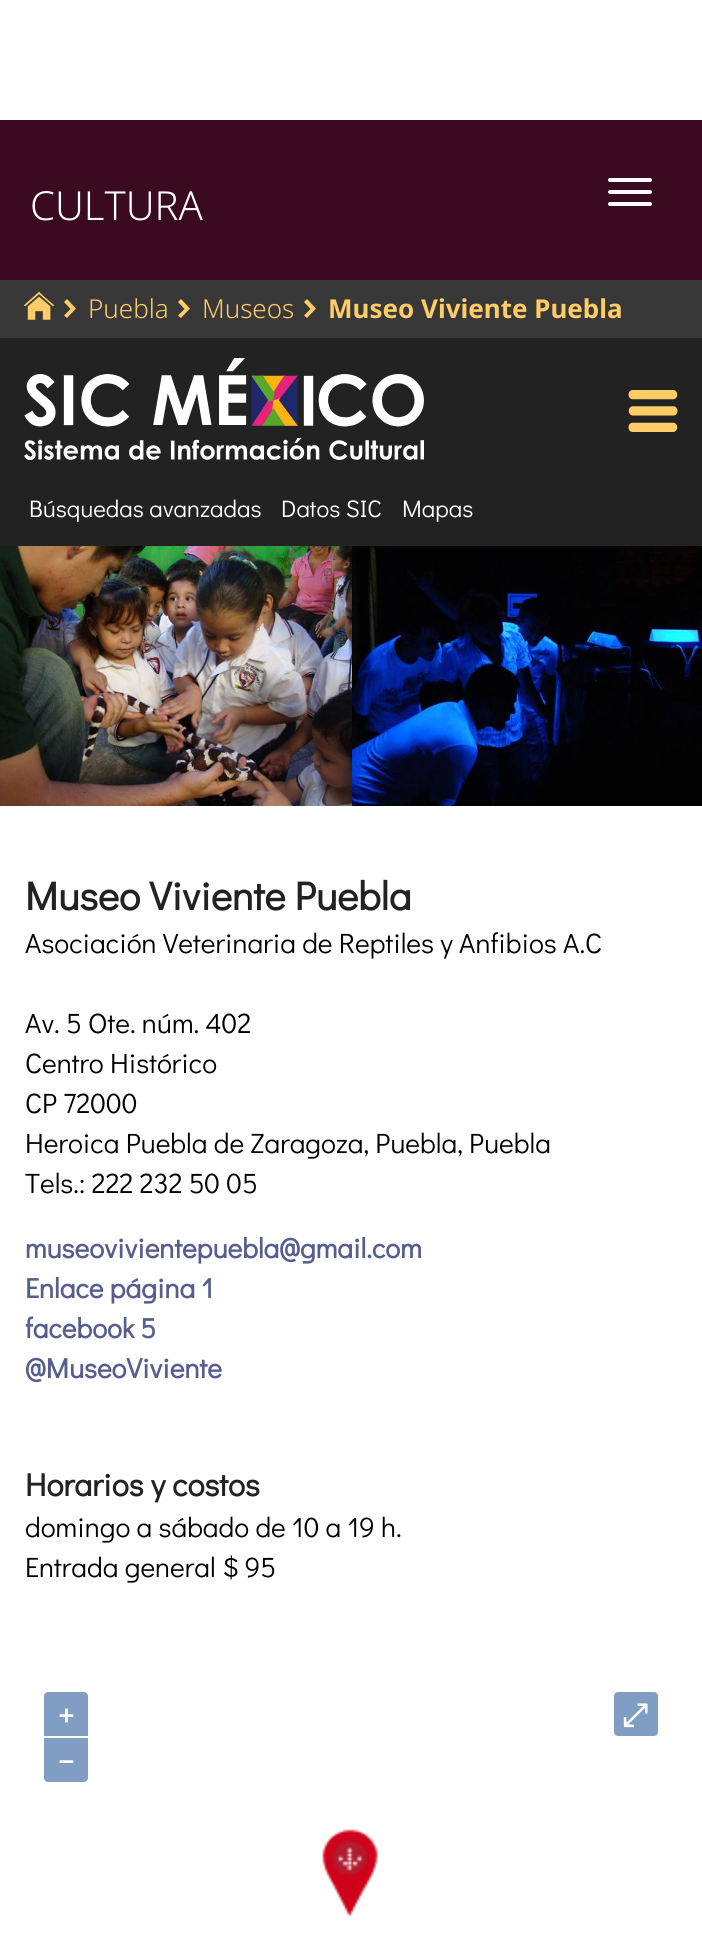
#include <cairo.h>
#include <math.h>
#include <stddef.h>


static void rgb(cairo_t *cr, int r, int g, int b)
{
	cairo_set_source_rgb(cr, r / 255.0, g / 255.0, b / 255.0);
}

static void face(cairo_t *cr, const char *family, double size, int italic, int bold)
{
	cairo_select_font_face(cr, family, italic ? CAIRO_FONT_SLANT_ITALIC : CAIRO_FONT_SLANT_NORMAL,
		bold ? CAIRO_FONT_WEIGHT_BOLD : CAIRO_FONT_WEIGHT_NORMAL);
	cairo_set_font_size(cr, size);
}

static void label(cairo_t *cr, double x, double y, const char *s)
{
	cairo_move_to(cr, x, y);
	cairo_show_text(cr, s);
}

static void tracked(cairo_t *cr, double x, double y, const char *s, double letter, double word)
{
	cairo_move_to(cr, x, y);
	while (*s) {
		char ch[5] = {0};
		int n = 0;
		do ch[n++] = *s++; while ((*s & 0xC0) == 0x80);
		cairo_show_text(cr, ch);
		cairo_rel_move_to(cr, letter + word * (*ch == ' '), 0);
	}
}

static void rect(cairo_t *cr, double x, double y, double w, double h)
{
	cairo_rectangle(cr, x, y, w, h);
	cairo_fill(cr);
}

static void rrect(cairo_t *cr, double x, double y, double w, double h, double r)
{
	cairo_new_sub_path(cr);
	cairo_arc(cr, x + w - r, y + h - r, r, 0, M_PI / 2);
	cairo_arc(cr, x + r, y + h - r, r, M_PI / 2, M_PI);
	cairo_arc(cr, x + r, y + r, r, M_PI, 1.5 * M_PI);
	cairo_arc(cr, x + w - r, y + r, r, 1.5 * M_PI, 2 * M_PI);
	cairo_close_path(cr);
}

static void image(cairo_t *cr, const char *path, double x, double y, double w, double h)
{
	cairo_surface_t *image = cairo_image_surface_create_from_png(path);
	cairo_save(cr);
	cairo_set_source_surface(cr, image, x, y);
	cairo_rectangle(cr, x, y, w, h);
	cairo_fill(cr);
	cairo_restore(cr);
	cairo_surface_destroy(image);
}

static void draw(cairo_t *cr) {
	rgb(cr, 255, 255, 255);
	cairo_paint(cr);
	rgb(cr, 58, 11, 31);
	rect(cr, 0, 120, 702, 160);
	face(cr, "Noto Sans Light", 40, 0, 0);
	rgb(cr, 255, 255, 255);
	label(cr, 30, 220, "CULTURA");
	rrect(cr, 608, 178, 44, 4, 2);
	cairo_fill(cr);
	rrect(cr, 608, 190, 44, 4, 2);
	cairo_fill(cr);
	rrect(cr, 608, 202, 44, 4, 2);
	cairo_fill(cr);
	rgb(cr, 55, 56, 55);
	rect(cr, 0, 280, 702, 58);
	image(cr, "image0.png", 24, 291, 31, 29);
	rgb(cr, 255, 204, 102);
	cairo_new_path(cr);
	cairo_move_to(cr, 76, 308.5);
	cairo_line_to(cr, 67, 318);
	cairo_line_to(cr, 64, 315.5);
	cairo_line_to(cr, 70.5, 309);
	cairo_line_to(cr, 64, 302);
	cairo_line_to(cr, 67, 299);
	cairo_close_path(cr);
	cairo_fill(cr);
	face(cr, "Noto Sans Light", 26, 0, 0);
	label(cr, 88, 318, "Puebla");
	cairo_new_path(cr);
	cairo_move_to(cr, 190, 308.5);
	cairo_line_to(cr, 181, 318);
	cairo_line_to(cr, 178, 315.5);
	cairo_line_to(cr, 184.5, 309);
	cairo_line_to(cr, 178, 302);
	cairo_line_to(cr, 181, 299);
	cairo_close_path(cr);
	cairo_fill(cr);
	label(cr, 202, 318, "Museos");
	cairo_new_path(cr);
	cairo_move_to(cr, 316, 308.5);
	cairo_line_to(cr, 307, 318);
	cairo_line_to(cr, 304, 315.5);
	cairo_line_to(cr, 310.5, 309);
	cairo_line_to(cr, 304, 302);
	cairo_line_to(cr, 307, 299);
	cairo_close_path(cr);
	cairo_fill(cr);
	face(cr, "Noto Sans", 26, 0, 1);
	label(cr, 328, 318, "Museo Viviente Puebla");
	rgb(cr, 33, 34, 33);
	rect(cr, 0, 338, 702, 208);
	image(cr, "image1.png", 24, 358, 400, 102);
	image(cr, "image2.png", 628, 390, 50, 42);
	face(cr, "Didact Gothic", 24, 0, 0);
	rgb(cr, 255, 255, 255);
	label(cr, 29, 517, "Búsquedas avanzadas");
	label(cr, 281, 517, "Datos SIC");
	label(cr, 402, 517, "Mapas");
	image(cr, "image3.png", 0, 546, 352, 260);
	image(cr, "image4.png", 352, 546, 350, 260);
	face(cr, "Didact Gothic", 40, 0, 1);
	rgb(cr, 33, 34, 33);
	label(cr, 25, 910, "Museo Viviente Puebla");
	face(cr, "Didact Gothic", 28, 0, 0);
	rgb(cr, 0, 0, 0);
	label(cr, 25, 953, "Asociación Veterinaria de Reptiles y Anfibios A.C");
	label(cr, 25, 1033, "Av. 5 Ote. núm. 402");
	label(cr, 25, 1073, "Centro Histórico");
	label(cr, 25, 1113, "CP 72000");
	label(cr, 25, 1153, "Heroica Puebla de Zaragoza, Puebla, Puebla");
	label(cr, 25, 1193, "Tels.: 222 232 50 05");
	face(cr, "Didact Gothic", 28, 0, 1);
	rgb(cr, 87, 94, 142);
	label(cr, 25, 1258, "museovivientepuebla@gmail.com");
	label(cr, 25, 1298, "Enlace página 1");
	label(cr, 25, 1338, "facebook 5");
	label(cr, 25, 1378, "@MuseoViviente");
	face(cr, "Didact Gothic", 32, 0, 1);
	rgb(cr, 33, 34, 33);
	label(cr, 25, 1496, "Horarios y costos");
	face(cr, "Didact Gothic", 28, 0, 0);
	rgb(cr, 0, 0, 0);
	label(cr, 25, 1537, "domingo a sábado de 10 a 19 h.");
	label(cr, 25, 1577, "Entrada general $ 95");
	rgb(cr, 128, 158, 196);
	cairo_new_path(cr);
	cairo_move_to(cr, 48, 1692);
	cairo_line_to(cr, 84, 1692);
	cairo_curve_to(cr, 86, 1692, 88, 1694, 88, 1696);
	cairo_line_to(cr, 88, 1736);
	cairo_line_to(cr, 44, 1736);
	cairo_line_to(cr, 44, 1696);
	cairo_curve_to(cr, 44, 1694, 46, 1692, 48, 1692);
	cairo_close_path(cr);
	cairo_fill(cr);
	face(cr, "Didact Gothic", 32, 0, 1);
	rgb(cr, 255, 255, 255);
	tracked(cr, 58, 1726, "+", 2, 0);
	rgb(cr, 128, 158, 196);
	cairo_new_path(cr);
	cairo_move_to(cr, 44, 1738);
	cairo_line_to(cr, 88, 1738);
	cairo_line_to(cr, 88, 1778);
	cairo_curve_to(cr, 88, 1780, 86, 1782, 84, 1782);
	cairo_line_to(cr, 48, 1782);
	cairo_curve_to(cr, 46, 1782, 44, 1780, 44, 1778);
	cairo_close_path(cr);
	cairo_fill(cr);
	rgb(cr, 255, 255, 255);
	tracked(cr, 58, 1772, "−", 2, 0);
	rgb(cr, 128, 158, 196);
	rrect(cr, 614, 1692, 44, 44, 4);
	cairo_fill(cr);
	face(cr, "FreeSerif", 32, 0, 1);
	rgb(cr, 255, 255, 255);
	tracked(cr, 622, 1726, "⤢", 2, 0);
	image(cr, "image5.png", 322, 1829, 56, 88);
}

int main(void) {
	cairo_surface_t *surface = cairo_image_surface_create(CAIRO_FORMAT_RGB24, 702, 1936);
	cairo_t *cr = cairo_create(surface);
	cairo_font_options_t *options = cairo_font_options_create();
	cairo_font_options_set_hint_metrics(options, CAIRO_HINT_METRICS_OFF);
	cairo_font_options_set_hint_style(options, CAIRO_HINT_STYLE_NONE);
	cairo_set_font_options(cr, options);
	cairo_set_miter_limit(cr, 4);
	draw(cr);
	cairo_surface_write_to_png(surface, "render.png");
	cairo_font_options_destroy(options);
	cairo_destroy(cr);
	cairo_surface_destroy(surface);
	return 0;
}
